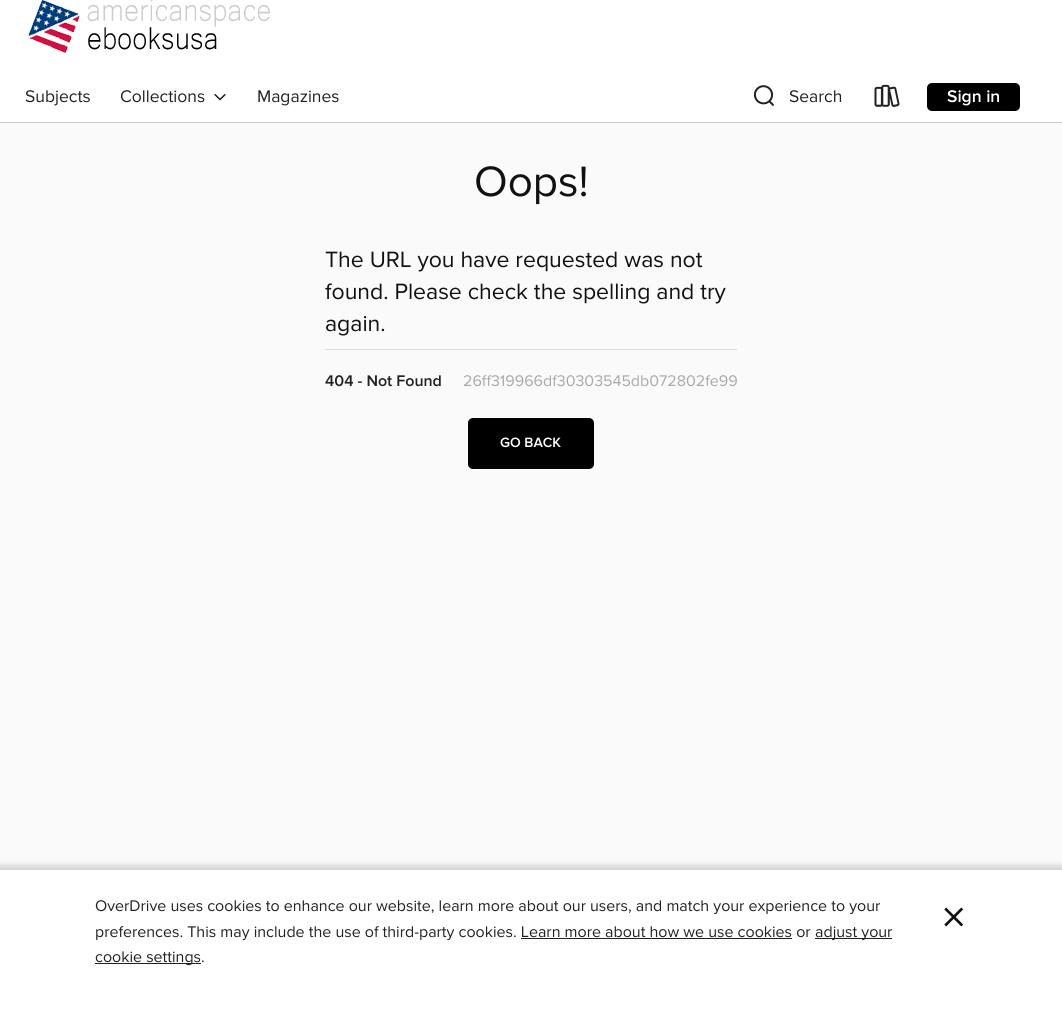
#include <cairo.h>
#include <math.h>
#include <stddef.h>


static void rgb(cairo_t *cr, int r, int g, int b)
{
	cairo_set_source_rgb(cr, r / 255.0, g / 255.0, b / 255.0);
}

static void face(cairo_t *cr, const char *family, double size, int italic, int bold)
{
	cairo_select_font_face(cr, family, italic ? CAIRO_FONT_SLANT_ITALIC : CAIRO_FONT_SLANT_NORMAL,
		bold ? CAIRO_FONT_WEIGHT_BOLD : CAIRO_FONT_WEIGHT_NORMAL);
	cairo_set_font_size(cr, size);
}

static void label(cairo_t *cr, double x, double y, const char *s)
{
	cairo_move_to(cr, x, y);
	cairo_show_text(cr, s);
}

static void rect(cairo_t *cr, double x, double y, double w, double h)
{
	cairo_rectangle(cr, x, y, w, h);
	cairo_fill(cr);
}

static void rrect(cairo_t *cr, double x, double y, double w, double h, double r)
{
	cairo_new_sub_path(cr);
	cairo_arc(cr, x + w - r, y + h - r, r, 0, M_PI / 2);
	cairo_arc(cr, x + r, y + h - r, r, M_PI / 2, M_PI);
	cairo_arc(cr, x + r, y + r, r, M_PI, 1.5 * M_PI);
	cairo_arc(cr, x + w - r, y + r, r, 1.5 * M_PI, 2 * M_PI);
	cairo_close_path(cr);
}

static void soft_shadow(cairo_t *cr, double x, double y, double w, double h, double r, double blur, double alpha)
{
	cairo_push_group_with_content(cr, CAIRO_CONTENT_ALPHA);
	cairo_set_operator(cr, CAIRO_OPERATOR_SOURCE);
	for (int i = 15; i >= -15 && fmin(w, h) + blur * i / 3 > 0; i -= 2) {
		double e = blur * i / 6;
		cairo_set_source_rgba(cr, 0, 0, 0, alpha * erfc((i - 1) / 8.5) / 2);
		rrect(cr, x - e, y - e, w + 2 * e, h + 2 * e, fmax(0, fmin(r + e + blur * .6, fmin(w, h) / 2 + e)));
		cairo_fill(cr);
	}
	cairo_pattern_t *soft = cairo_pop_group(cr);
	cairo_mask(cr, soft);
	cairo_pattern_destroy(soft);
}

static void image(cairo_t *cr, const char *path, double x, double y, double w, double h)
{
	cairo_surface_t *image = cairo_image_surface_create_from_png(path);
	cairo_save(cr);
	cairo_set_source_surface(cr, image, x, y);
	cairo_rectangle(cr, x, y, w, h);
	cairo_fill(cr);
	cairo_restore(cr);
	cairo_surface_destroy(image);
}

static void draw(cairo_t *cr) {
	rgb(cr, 250, 250, 250);
	cairo_paint(cr);
	rgb(cr, 255, 255, 255);
	rect(cr, 0, 0, 1062, 122);
	rgb(cr, 204, 204, 204);
	rect(cr, 0, 122, 1062, 1);
	image(cr, "image0.png", 28, 0, 242, 53);
	face(cr, "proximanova", 17.5, 0, 0);
	rgb(cr, 34, 34, 34);
	label(cr, 25, 102, "Subjects");
	label(cr, 120, 102, "Collections");
	image(cr, "image1.png", 214, 94, 12, 7);
	label(cr, 257, 102, "Magazines");
	image(cr, "image2.png", 753, 85, 21, 21);
	label(cr, 789, 102, "Search");
	image(cr, "image3.png", 874, 84, 26, 23);
	rgb(cr, 0, 0, 0);
	rrect(cr, 927, 83, 93, 28, 5);
	cairo_fill(cr);
	face(cr, "Proxima Nova SemiBold", 17.5, 0, 0);
	rgb(cr, 255, 255, 255);
	label(cr, 947, 102, "Sign in");
	face(cr, "proximanova", 44, 0, 0);
	rgb(cr, 17, 17, 17);
	label(cr, 474, 196, "Oops!");
	face(cr, "proximanova", 23, 0, 0);
	label(cr, 325, 267, "The URL you have requested was not");
	label(cr, 325, 299, "found. Please check the spelling and try");
	label(cr, 325, 331, "again.");
	rgb(cr, 221, 221, 221);
	rect(cr, 325, 349, 412, 1);
	face(cr, "Proxima Nova SemiBold", 16, 0, 0);
	rgb(cr, 34, 34, 34);
	label(cr, 325, 386, "404 - Not Found");
	face(cr, "proximanova", 16, 0, 0);
	rgb(cr, 167, 169, 172);
	label(cr, 463, 386, "26ff319966df30303545db072802fe99");
	rgb(cr, 0, 0, 0);
	rrect(cr, 468, 418, 126, 51, 5);
	cairo_fill(cr);
	face(cr, "Proxima Nova SemiBold", 14, 0, 0);
	rgb(cr, 255, 255, 255);
	label(cr, 500, 447, "GO BACK");
	rgb(cr, 0, 0, 0);
	soft_shadow(cr, -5, 865, 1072, 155, 0, 2.5, 0.15);
	rgb(cr, 255, 255, 255);
	rect(cr, 0, 870, 1062, 145);
	face(cr, "proximanova", 16, 0, 0);
	rgb(cr, 34, 34, 34);
	label(cr, 95, 911, "OverDrive uses cookies to enhance our website, learn more about our users, and match your experience to your");
	label(cr, 95, 937, "preferences. This may include the use of third-party cookies. Learn more about how we use cookies or");
	rect(cr, 521, 938, 271, 1);
	rect(cr, 815, 938, 77, 1);
	label(cr, 815, 937, "adjust your");
	rect(cr, 95, 963, 106, 1);
	label(cr, 95, 962, "cookie settings.");
	face(cr, "proximanova", 51, 0, 0);
	rgb(cr, 17, 17, 17);
	label(cr, 941, 934, "×");
}

int main(void) {
	cairo_surface_t *surface = cairo_image_surface_create(CAIRO_FORMAT_RGB24, 1062, 1015);
	cairo_t *cr = cairo_create(surface);
	cairo_font_options_t *options = cairo_font_options_create();
	cairo_font_options_set_hint_metrics(options, CAIRO_HINT_METRICS_OFF);
	cairo_font_options_set_hint_style(options, CAIRO_HINT_STYLE_NONE);
	cairo_set_font_options(cr, options);
	cairo_set_miter_limit(cr, 4);
	draw(cr);
	cairo_surface_write_to_png(surface, "render.png");
	cairo_font_options_destroy(options);
	cairo_destroy(cr);
	cairo_surface_destroy(surface);
	return 0;
}
